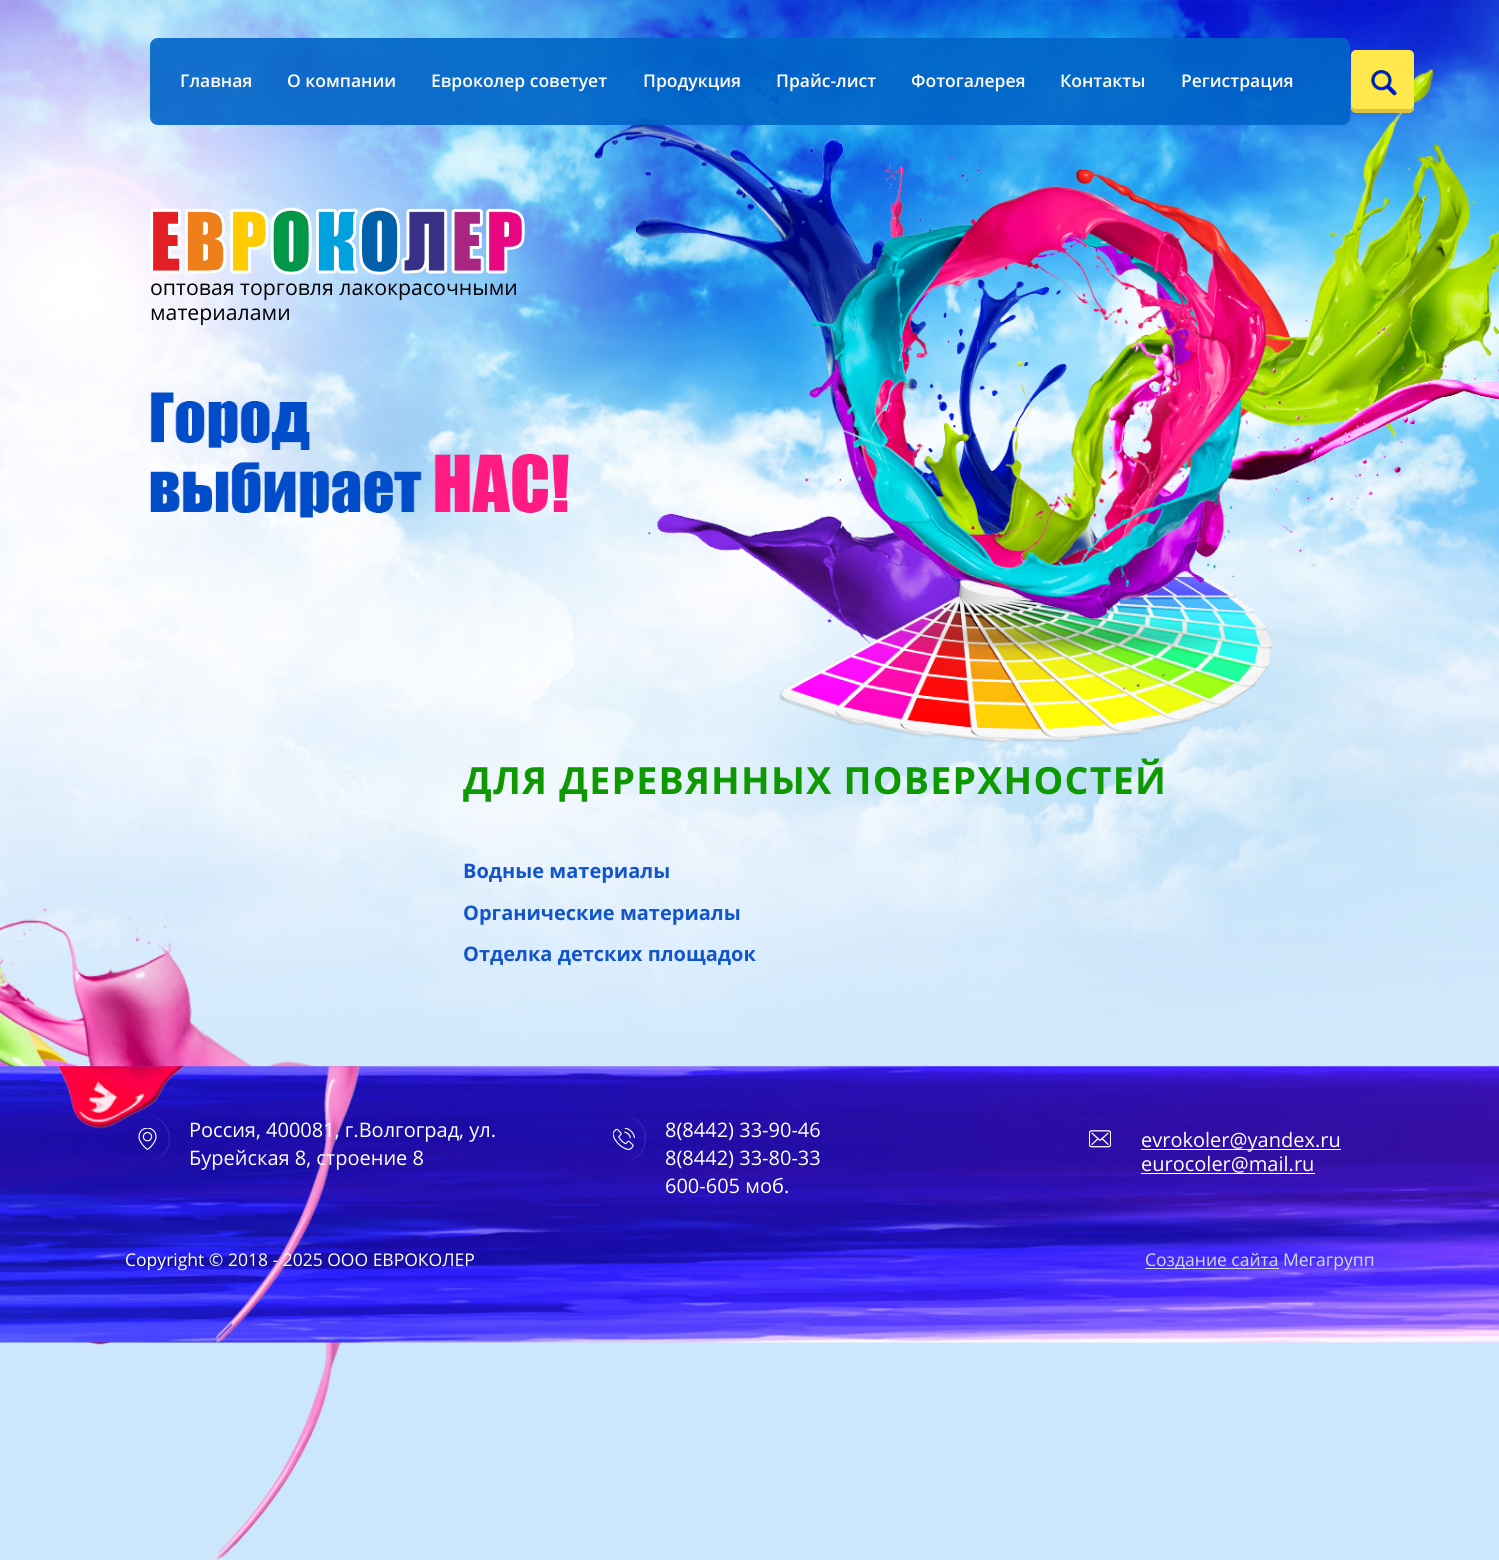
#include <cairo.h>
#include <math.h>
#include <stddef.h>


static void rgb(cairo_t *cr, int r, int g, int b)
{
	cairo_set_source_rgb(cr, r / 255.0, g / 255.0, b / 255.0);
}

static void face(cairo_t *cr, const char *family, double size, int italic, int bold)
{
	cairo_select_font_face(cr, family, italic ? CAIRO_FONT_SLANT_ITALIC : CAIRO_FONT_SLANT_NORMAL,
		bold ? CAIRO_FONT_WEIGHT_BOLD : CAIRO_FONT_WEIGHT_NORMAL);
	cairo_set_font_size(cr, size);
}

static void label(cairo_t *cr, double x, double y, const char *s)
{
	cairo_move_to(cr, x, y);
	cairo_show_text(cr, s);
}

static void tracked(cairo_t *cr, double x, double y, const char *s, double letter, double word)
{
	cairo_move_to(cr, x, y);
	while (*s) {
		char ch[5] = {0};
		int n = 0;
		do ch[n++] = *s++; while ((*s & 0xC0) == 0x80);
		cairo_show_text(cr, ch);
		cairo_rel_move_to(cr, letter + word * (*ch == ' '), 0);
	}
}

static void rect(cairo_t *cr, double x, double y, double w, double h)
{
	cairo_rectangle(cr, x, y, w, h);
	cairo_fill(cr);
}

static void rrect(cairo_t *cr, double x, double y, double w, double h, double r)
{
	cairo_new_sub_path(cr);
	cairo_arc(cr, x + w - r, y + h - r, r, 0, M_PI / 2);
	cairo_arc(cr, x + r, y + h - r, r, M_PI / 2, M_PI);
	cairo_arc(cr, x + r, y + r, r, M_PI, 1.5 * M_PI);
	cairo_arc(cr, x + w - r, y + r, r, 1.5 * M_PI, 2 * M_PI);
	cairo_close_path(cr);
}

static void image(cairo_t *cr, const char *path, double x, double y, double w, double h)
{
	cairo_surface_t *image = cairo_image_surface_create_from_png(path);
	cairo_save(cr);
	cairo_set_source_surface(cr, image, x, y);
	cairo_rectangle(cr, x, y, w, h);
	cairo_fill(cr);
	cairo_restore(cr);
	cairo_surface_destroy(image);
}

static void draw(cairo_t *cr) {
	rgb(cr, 204, 231, 252);
	cairo_paint(cr);
	image(cr, "image0.png", 0, 0, 1499, 1560);
	image(cr, "image1.png", 594, 69, 905, 674);
	cairo_set_source_rgba(cr, 0, 0.392, 0.78, 0.9);
	rrect(cr, 150, 38, 1200, 87, 8);
	cairo_fill(cr);
	face(cr, "Open Sans SemiBold", 17.5, 0, 0);
	rgb(cr, 255, 255, 255);
	label(cr, 180, 87, "Главная");
	label(cr, 287, 87, "О компании");
	label(cr, 431, 87, "Евроколер советует");
	label(cr, 643, 87, "Продукция");
	label(cr, 776, 87, "Прайс-лист");
	label(cr, 911, 87, "Фотогалерея");
	label(cr, 1060, 87, "Контакты");
	label(cr, 1181, 87, "Регистрация");
	rgb(cr, 255, 231, 76);
	rrect(cr, 1351, 50, 63, 63, 5);
	cairo_fill(cr);
	image(cr, "image2.png", 1371, 70, 26, 26);
	cairo_set_source_rgba(cr, 0, 0, 0, 0.16);
	cairo_new_path(cr);
	cairo_move_to(cr, 1351, 104);
	cairo_curve_to(cr, 1351, 115, 1354, 113, 1365, 113);
	cairo_line_to(cr, 1400, 113);
	cairo_curve_to(cr, 1411, 113, 1414, 115, 1414, 104);
	cairo_curve_to(cr, 1414, 107, 1412, 109, 1409, 109);
	cairo_line_to(cr, 1356, 109);
	cairo_curve_to(cr, 1353, 109, 1351, 107, 1351, 104);
	cairo_close_path(cr);
	cairo_fill(cr);
	image(cr, "image3.png", 150, 207, 375, 68);
	face(cr, "Open Sans", 21.25, 0, 0);
	rgb(cr, 0, 0, 0);
	label(cr, 150, 295, "оптовая торговля лакокрасочными");
	label(cr, 150, 320, "материалами");
	image(cr, "image4.png", 150, 392, 419, 126);
	face(cr, "Open Sans", 37.5, 0, 1);
	rgb(cr, 14, 153, 2);
	tracked(cr, 463, 794, "ДЛЯ ДЕРЕВЯННЫХ ПОВЕРХНОСТЕЙ", 1.25, 0);
	face(cr, "Open Sans", 20, 0, 1);
	rgb(cr, 17, 85, 204);
	label(cr, 463, 878, "Водные материалы");
	label(cr, 463, 920, "Органические материалы");
	label(cr, 463, 961, "Отделка детских площадок");
	image(cr, "image5.png", 0, 1066, 1499, 277);
	image(cr, "image6.png", 138, 1128, 19, 22);
	cairo_set_source_rgba(cr, 1, 1, 1, 0.1);
	cairo_new_path(cr);
	cairo_move_to(cr, 148, 1116);
	cairo_line_to(cr, 147, 1116);
	cairo_curve_to(cr, 176, 1117, 176, 1160, 147, 1161);
	cairo_curve_to(cr, 177, 1162, 178, 1116, 148, 1116);
	cairo_close_path(cr);
	cairo_fill(cr);
	face(cr, "Open Sans", 20, 0, 0);
	rgb(cr, 255, 255, 255);
	label(cr, 189, 1137, "Россия, 400081, г.Волгоград, ул.");
	label(cr, 189, 1165, "Бурейская 8, строение 8");
	image(cr, "image7.png", 613, 1128, 22, 22);
	cairo_set_source_rgba(cr, 1, 1, 1, 0.1);
	cairo_new_path(cr);
	cairo_move_to(cr, 624, 1116);
	cairo_line_to(cr, 623, 1116);
	cairo_curve_to(cr, 652, 1117, 652, 1160, 623, 1161);
	cairo_curve_to(cr, 653, 1162, 654, 1116, 624, 1116);
	cairo_close_path(cr);
	cairo_fill(cr);
	rgb(cr, 255, 255, 255);
	label(cr, 665, 1137, "8(8442) 33-90-46");
	label(cr, 665, 1165, "8(8442) 33-80-33");
	label(cr, 665, 1193, "600-605 моб.");
	image(cr, "image8.png", 1089, 1130, 22, 18);
	rect(cr, 1141, 1149, 200, 1);
	label(cr, 1141, 1147, "evrokoler@yandex.ru");
	label(cr, 1141, 1171, "eurocoler@mail.ru");
	rect(cr, 1141, 1173, 174, 1);
	face(cr, "Open Sans", 17.5, 0, 0);
	label(cr, 125, 1266, "Copyright © 2018 - 2025 ООО ЕВРОКОЛЕР");
	rgb(cr, 216, 216, 216);
	rect(cr, 1145, 1268, 134, 1);
	label(cr, 1145, 1266, "Создание сайта Мегагрупп");
}

int main(void) {
	cairo_surface_t *surface = cairo_image_surface_create(CAIRO_FORMAT_RGB24, 1499, 1560);
	cairo_t *cr = cairo_create(surface);
	cairo_font_options_t *options = cairo_font_options_create();
	cairo_font_options_set_hint_metrics(options, CAIRO_HINT_METRICS_OFF);
	cairo_font_options_set_hint_style(options, CAIRO_HINT_STYLE_NONE);
	cairo_set_font_options(cr, options);
	cairo_set_miter_limit(cr, 4);
	draw(cr);
	cairo_surface_write_to_png(surface, "render.png");
	cairo_font_options_destroy(options);
	cairo_destroy(cr);
	cairo_surface_destroy(surface);
	return 0;
}
